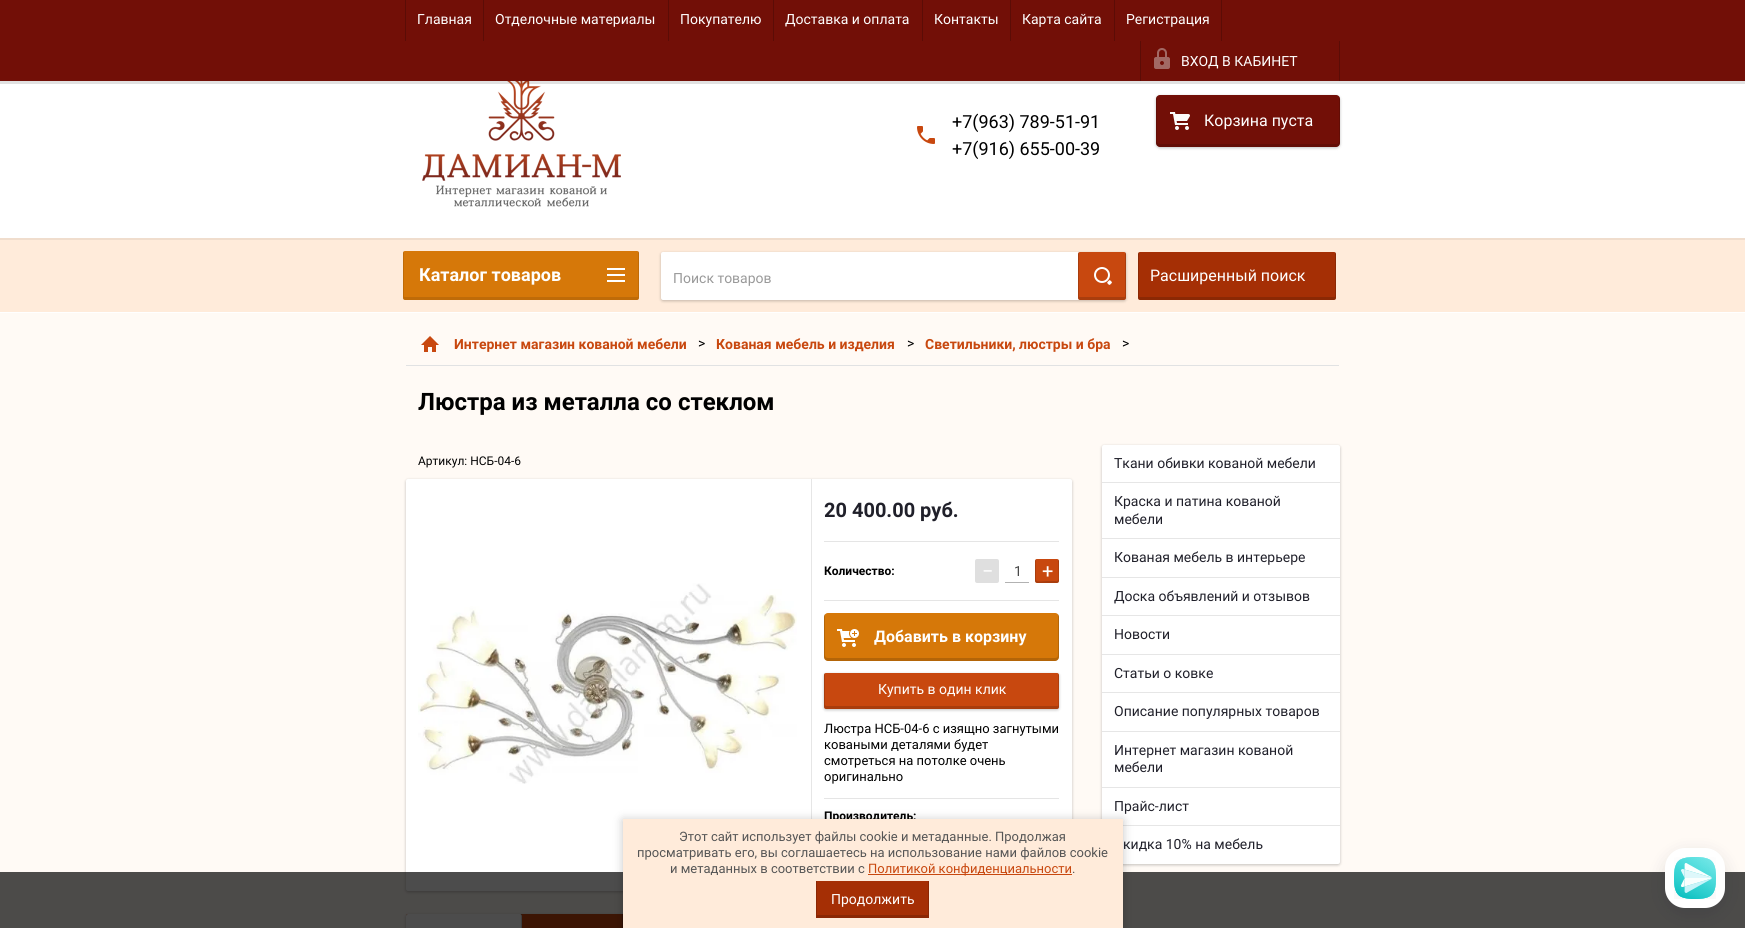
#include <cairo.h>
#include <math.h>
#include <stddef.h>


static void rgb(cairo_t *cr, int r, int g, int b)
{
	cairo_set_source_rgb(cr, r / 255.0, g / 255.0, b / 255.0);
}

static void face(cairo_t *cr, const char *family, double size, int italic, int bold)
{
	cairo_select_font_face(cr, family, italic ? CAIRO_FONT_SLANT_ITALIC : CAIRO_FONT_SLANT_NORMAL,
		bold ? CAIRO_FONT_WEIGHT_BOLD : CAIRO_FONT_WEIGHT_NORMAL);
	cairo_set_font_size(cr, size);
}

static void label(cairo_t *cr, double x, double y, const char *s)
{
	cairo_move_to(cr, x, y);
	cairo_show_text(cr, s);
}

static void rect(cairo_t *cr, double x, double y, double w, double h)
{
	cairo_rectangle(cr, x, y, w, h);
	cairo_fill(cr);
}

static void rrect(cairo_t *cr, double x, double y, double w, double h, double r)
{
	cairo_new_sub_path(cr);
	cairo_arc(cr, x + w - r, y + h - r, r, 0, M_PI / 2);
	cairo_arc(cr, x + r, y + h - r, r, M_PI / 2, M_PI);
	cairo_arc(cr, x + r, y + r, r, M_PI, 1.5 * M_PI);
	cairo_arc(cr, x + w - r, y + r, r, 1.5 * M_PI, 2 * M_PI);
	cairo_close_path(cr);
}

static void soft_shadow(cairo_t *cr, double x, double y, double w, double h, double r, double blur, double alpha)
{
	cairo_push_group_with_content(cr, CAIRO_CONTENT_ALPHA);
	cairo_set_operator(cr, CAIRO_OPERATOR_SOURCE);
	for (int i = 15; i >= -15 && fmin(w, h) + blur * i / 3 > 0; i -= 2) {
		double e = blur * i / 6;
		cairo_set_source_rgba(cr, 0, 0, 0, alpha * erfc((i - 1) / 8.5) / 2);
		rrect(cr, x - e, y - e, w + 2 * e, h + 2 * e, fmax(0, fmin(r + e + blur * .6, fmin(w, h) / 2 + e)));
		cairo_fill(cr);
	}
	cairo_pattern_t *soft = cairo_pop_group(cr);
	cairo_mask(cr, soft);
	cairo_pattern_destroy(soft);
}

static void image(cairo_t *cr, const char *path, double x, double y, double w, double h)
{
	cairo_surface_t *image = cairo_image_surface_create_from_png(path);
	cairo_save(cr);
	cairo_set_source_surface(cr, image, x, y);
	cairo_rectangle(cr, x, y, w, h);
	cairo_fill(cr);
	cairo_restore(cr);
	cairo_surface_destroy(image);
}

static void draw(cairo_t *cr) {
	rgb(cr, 255, 250, 245);
	cairo_paint(cr);
	rgb(cr, 255, 255, 255);
	rect(cr, 0, 81, 1745, 157);
	image(cr, "image1.png", 422, 81, 199, 126);
	cairo_set_source_rgba(cr, 0, 0, 0, 0.12);
	rect(cr, 0, 81, 1745, 3);
	rgb(cr, 114, 15, 7);
	rect(cr, 0, 0, 1745, 81);
	rgb(cr, 91, 12, 6);
	rect(cr, 405, 0, 1, 41);
	face(cr, "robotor", 14, 0, 0);
	rgb(cr, 255, 255, 255);
	label(cr, 417, 24, "Главная");
	rgb(cr, 91, 12, 6);
	rect(cr, 483, 0, 1, 41);
	rgb(cr, 255, 255, 255);
	label(cr, 495, 24, "Отделочные материалы");
	rgb(cr, 91, 12, 6);
	rect(cr, 668, 0, 1, 41);
	rgb(cr, 255, 255, 255);
	label(cr, 680, 24, "Покупателю");
	rgb(cr, 91, 12, 6);
	rect(cr, 773, 0, 1, 41);
	rgb(cr, 255, 255, 255);
	label(cr, 785, 24, "Доставка и оплата");
	rgb(cr, 91, 12, 6);
	rect(cr, 922, 0, 1, 41);
	rgb(cr, 255, 255, 255);
	label(cr, 934, 24, "Контакты");
	rgb(cr, 91, 12, 6);
	rect(cr, 1010, 0, 1, 41);
	rgb(cr, 255, 255, 255);
	label(cr, 1022, 24, "Карта сайта");
	rgb(cr, 91, 12, 6);
	rect(cr, 1114, 0, 1, 41);
	rgb(cr, 255, 255, 255);
	label(cr, 1126, 24, "Регистрация");
	rgb(cr, 91, 12, 6);
	rect(cr, 1221, 0, 1, 41);
	rect(cr, 1140, 41, 1, 40);
	image(cr, "image0.png", 1154, 48, 16, 21);
	rgb(cr, 255, 255, 255);
	label(cr, 1181, 66, "ВХОД В КАБИНЕТ");
	rgb(cr, 91, 12, 6);
	rect(cr, 1339, 41, 1, 40);
	face(cr, "robotor", 18, 0, 0);
	rgb(cr, 0, 0, 0);
	label(cr, 952, 128, "+7(963) 789-51-91");
	image(cr, "image2.png", 917, 126, 18, 18);
	label(cr, 952, 155, "+7(916) 655-00-39");
	rgb(cr, 0, 0, 0);
	soft_shadow(cr, 1156, 96, 184, 52, 4, 1.5, 0.24);
	rgb(cr, 114, 15, 7);
	rrect(cr, 1156, 95, 184, 52, 4);
	cairo_fill(cr);
	cairo_set_source_rgba(cr, 0, 0, 0, 0.14);
	cairo_new_path(cr);
	cairo_move_to(cr, 1157, 96);
	cairo_curve_to(cr, 1156, 97, 1156, 98, 1156, 99);
	cairo_line_to(cr, 1156, 143);
	cairo_curve_to(cr, 1156, 145, 1158, 147, 1160, 147);
	cairo_line_to(cr, 1336, 147);
	cairo_curve_to(cr, 1338, 147, 1340, 145, 1340, 143);
	cairo_line_to(cr, 1340, 99);
	cairo_curve_to(cr, 1340, 98, 1340, 97, 1339, 96);
	cairo_line_to(cr, 1339, 134);
	cairo_curve_to(cr, 1339, 136, 1341, 144, 1336, 144);
	cairo_line_to(cr, 1160, 144);
	cairo_curve_to(cr, 1155, 144, 1157, 136, 1157, 134);
	cairo_close_path(cr);
	cairo_fill(cr);
	image(cr, "image3.png", 1170, 112, 20, 18);
	face(cr, "robotor", 16, 0, 0);
	rgb(cr, 255, 255, 255);
	label(cr, 1204, 126, "Корзина пуста");
	rect(cr, 0, 312, 1745, 1);
	rgb(cr, 255, 235, 218);
	rect(cr, 0, 240, 1745, 72);
	rgb(cr, 240, 221, 205);
	rect(cr, 0, 238, 1745, 2);
	rgb(cr, 214, 120, 9);
	rrect(cr, 403, 251, 236, 49, 2);
	cairo_fill(cr);
	cairo_set_source_rgba(cr, 0, 0, 0, 0.11);
	cairo_new_path(cr);
	cairo_move_to(cr, 404, 251);
	cairo_curve_to(cr, 403, 252, 403, 252, 403, 253);
	cairo_line_to(cr, 403, 298);
	cairo_curve_to(cr, 403, 299, 404, 300, 405, 300);
	cairo_line_to(cr, 637, 300);
	cairo_curve_to(cr, 638, 300, 639, 299, 639, 298);
	cairo_line_to(cr, 639, 253);
	cairo_curve_to(cr, 639, 252, 639, 252, 638, 251);
	cairo_line_to(cr, 638, 296);
	cairo_curve_to(cr, 638, 297, 638, 297, 637, 297);
	cairo_line_to(cr, 405, 297);
	cairo_curve_to(cr, 404, 297, 404, 297, 404, 296);
	cairo_close_path(cr);
	cairo_fill(cr);
	face(cr, "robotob", 18, 0, 1);
	rgb(cr, 255, 255, 255);
	label(cr, 419, 281, "Каталог товаров");
	image(cr, "image4.png", 607, 268, 18, 14);
	rgb(cr, 0, 0, 0);
	soft_shadow(cr, 1102, 446, 238, 419, 2, 1.5, 0.24);
	rgb(cr, 255, 255, 255);
	rrect(cr, 1102, 445, 238, 419, 2);
	cairo_fill(cr);
	face(cr, "robotor", 14, 0, 0);
	rgb(cr, 32, 32, 42);
	label(cr, 1114, 468, "Ткани обивки кованой мебели");
	rgb(cr, 230, 230, 230);
	rect(cr, 1102, 482, 238, 1);
	rgb(cr, 32, 32, 42);
	label(cr, 1114, 506, "Краска и патина кованой");
	label(cr, 1114, 524, "мебели");
	rgb(cr, 230, 230, 230);
	rect(cr, 1102, 538, 238, 1);
	rgb(cr, 32, 32, 42);
	label(cr, 1114, 562, "Кованая мебель в интерьере");
	rgb(cr, 230, 230, 230);
	rect(cr, 1102, 577, 238, 1);
	rgb(cr, 32, 32, 42);
	label(cr, 1114, 601, "Доска объявлений и отзывов");
	rgb(cr, 230, 230, 230);
	rect(cr, 1102, 615, 238, 1);
	rgb(cr, 32, 32, 42);
	label(cr, 1114, 639, "Новости");
	rgb(cr, 230, 230, 230);
	rect(cr, 1102, 654, 238, 1);
	rgb(cr, 32, 32, 42);
	label(cr, 1114, 678, "Статьи о ковке");
	rgb(cr, 230, 230, 230);
	rect(cr, 1102, 692, 238, 1);
	rgb(cr, 32, 32, 42);
	label(cr, 1114, 716, "Описание популярных товаров");
	rgb(cr, 230, 230, 230);
	rect(cr, 1102, 731, 238, 1);
	rgb(cr, 32, 32, 42);
	label(cr, 1114, 755, "Интернет магазин кованой");
	label(cr, 1114, 772, "мебели");
	rgb(cr, 230, 230, 230);
	rect(cr, 1102, 787, 238, 1);
	rgb(cr, 32, 32, 42);
	label(cr, 1114, 811, "Прайс-лист");
	rgb(cr, 230, 230, 230);
	rect(cr, 1123, 825, 217, 1);
	rgb(cr, 32, 32, 42);
	label(cr, 1123, 849, "кидка 10% на мебель");
	rgb(cr, 0, 0, 0);
	soft_shadow(cr, 661, 253, 465, 48, 2, 1.5, 0.24);
	rgb(cr, 255, 255, 255);
	rrect(cr, 661, 252, 465, 48, 2);
	cairo_fill(cr);
	rgb(cr, 153, 153, 153);
	label(cr, 673, 283, "Поиск товаров");
	rgb(cr, 200, 72, 15);
	rrect(cr, 1078, 252, 48, 48, 2);
	cairo_fill(cr);
	cairo_set_source_rgba(cr, 0, 0, 0, 0.16);
	cairo_new_path(cr);
	cairo_move_to(cr, 1079, 252);
	cairo_curve_to(cr, 1078, 253, 1078, 253, 1078, 254);
	cairo_line_to(cr, 1078, 298);
	cairo_curve_to(cr, 1078, 299, 1079, 300, 1080, 300);
	cairo_line_to(cr, 1124, 300);
	cairo_curve_to(cr, 1125, 300, 1126, 299, 1126, 298);
	cairo_line_to(cr, 1126, 254);
	cairo_curve_to(cr, 1126, 253, 1126, 253, 1125, 252);
	cairo_line_to(cr, 1125, 296);
	cairo_curve_to(cr, 1125, 297, 1125, 297, 1124, 297);
	cairo_line_to(cr, 1080, 297);
	cairo_curve_to(cr, 1079, 297, 1079, 297, 1079, 296);
	cairo_close_path(cr);
	cairo_fill(cr);
	image(cr, "image5.png", 1094, 267, 18, 18);
	rgb(cr, 165, 47, 5);
	rrect(cr, 1138, 252, 198, 48, 2);
	cairo_fill(cr);
	cairo_set_source_rgba(cr, 0, 0, 0, 0.16);
	cairo_new_path(cr);
	cairo_move_to(cr, 1139, 252);
	cairo_curve_to(cr, 1138, 253, 1138, 253, 1138, 254);
	cairo_line_to(cr, 1138, 298);
	cairo_curve_to(cr, 1138, 299, 1139, 300, 1140, 300);
	cairo_line_to(cr, 1334, 300);
	cairo_curve_to(cr, 1335, 300, 1336, 299, 1336, 298);
	cairo_line_to(cr, 1336, 254);
	cairo_curve_to(cr, 1336, 253, 1336, 253, 1335, 252);
	cairo_line_to(cr, 1335, 296);
	cairo_curve_to(cr, 1335, 297, 1335, 297, 1334, 297);
	cairo_line_to(cr, 1140, 297);
	cairo_curve_to(cr, 1139, 297, 1139, 297, 1139, 296);
	cairo_close_path(cr);
	cairo_fill(cr);
	face(cr, "robotor", 16, 0, 0);
	rgb(cr, 255, 255, 255);
	label(cr, 1150, 281, "Расширенный поиск");
	rgb(cr, 225, 226, 227);
	rect(cr, 406, 365, 933, 1);
	image(cr, "image6.png", 421, 336, 18, 16);
	face(cr, "robotob", 14, 0, 1);
	rgb(cr, 200, 72, 15);
	label(cr, 454, 349, "Интернет магазин кованой мебели");
	face(cr, "robotor", 14, 0, 0);
	rgb(cr, 0, 0, 0);
	label(cr, 698, 348, ">");
	face(cr, "robotob", 14, 0, 1);
	rgb(cr, 200, 72, 15);
	label(cr, 716, 349, "Кованая мебель и изделия");
	face(cr, "robotor", 14, 0, 0);
	rgb(cr, 0, 0, 0);
	label(cr, 907, 348, ">");
	face(cr, "robotob", 14, 0, 1);
	rgb(cr, 200, 72, 15);
	label(cr, 925, 349, "Светильники, люстры и бра");
	face(cr, "robotor", 14, 0, 0);
	rgb(cr, 0, 0, 0);
	label(cr, 1122, 348, ">");
	face(cr, "robotob", 24, 0, 1);
	label(cr, 418, 410, "Люстра из металла со стеклом");
	face(cr, "robotor", 12, 0, 0);
	label(cr, 418, 465, "Артикул: НСБ-04-6");
	rgb(cr, 0, 0, 0);
	soft_shadow(cr, 406, 480, 666, 412, 2, 1.5, 0.24);
	rgb(cr, 255, 255, 255);
	rrect(cr, 406, 479, 666, 412, 2);
	cairo_fill(cr);
	image(cr, "image7.png", 418, 583, 379, 201);
	rgb(cr, 230, 230, 230);
	rect(cr, 811, 479, 1, 340);
	face(cr, "robotob", 20, 0, 1);
	rgb(cr, 32, 32, 42);
	label(cr, 824, 517, "20 400.00 руб.");
	rgb(cr, 229, 229, 229);
	rect(cr, 824, 541, 235, 1);
	rect(cr, 824, 600, 235, 1);
	face(cr, "robotob", 12, 0, 1);
	rgb(cr, 0, 0, 0);
	label(cr, 824, 575, "Количество:");
	rgb(cr, 223, 223, 223);
	rrect(cr, 975, 559, 24, 24, 2);
	cairo_fill(cr);
	face(cr, "robotor", 20, 0, 0);
	rgb(cr, 255, 255, 255);
	label(cr, 982, 578, "−");
	rgb(cr, 178, 178, 178);
	rect(cr, 1005, 582, 24, 1);
	face(cr, "robotor", 14, 0, 0);
	rgb(cr, 72, 72, 72);
	label(cr, 1014, 576, "1");
	rgb(cr, 200, 72, 15);
	rrect(cr, 1035, 559, 24, 24, 2);
	cairo_fill(cr);
	cairo_set_source_rgba(cr, 0, 0, 0, 0.16);
	cairo_new_path(cr);
	cairo_move_to(cr, 1037, 559);
	cairo_curve_to(cr, 1036, 559, 1035, 560, 1035, 561);
	cairo_line_to(cr, 1035, 581);
	cairo_curve_to(cr, 1035, 582, 1036, 583, 1037, 583);
	cairo_line_to(cr, 1057, 583);
	cairo_curve_to(cr, 1058, 583, 1059, 582, 1059, 581);
	cairo_line_to(cr, 1059, 561);
	cairo_curve_to(cr, 1059, 560.5, 1058.5, 559.5, 1058, 559.5);
	cairo_line_to(cr, 1058.5, 579);
	cairo_curve_to(cr, 1058, 581, 1057, 581.5, 1054.5, 581);
	cairo_line_to(cr, 1047, 581);
	cairo_curve_to(cr, 1045.5, 581, 1038, 582, 1036.5, 581);
	cairo_line_to(cr, 1036, 579.5);
	cairo_line_to(cr, 1036, 565.5);
	cairo_curve_to(cr, 1035.5, 564.5, 1035.5, 559, 1037, 559);
	cairo_close_path(cr);
	cairo_fill(cr);
	face(cr, "robotor", 20, 0, 0);
	rgb(cr, 255, 255, 255);
	label(cr, 1042, 578, "+");
	rgb(cr, 214, 120, 9);
	rrect(cr, 824, 613, 235, 48, 4);
	cairo_fill(cr);
	cairo_set_source_rgba(cr, 0, 0, 0, 0.16);
	cairo_new_path(cr);
	cairo_move_to(cr, 825, 614);
	cairo_curve_to(cr, 824, 615, 824, 616, 824, 617);
	cairo_line_to(cr, 824, 657);
	cairo_curve_to(cr, 824, 659, 826, 661, 828, 661);
	cairo_line_to(cr, 1055, 661);
	cairo_curve_to(cr, 1057, 661, 1059, 659, 1059, 657);
	cairo_line_to(cr, 1059, 617);
	cairo_curve_to(cr, 1059, 616, 1059, 615, 1058, 614);
	cairo_line_to(cr, 1058, 655);
	cairo_curve_to(cr, 1058, 657, 1057, 658, 1055, 658);
	cairo_line_to(cr, 828, 658);
	cairo_curve_to(cr, 826, 658, 825, 657, 825, 655);
	cairo_close_path(cr);
	cairo_fill(cr);
	image(cr, "image8.png", 837, 629, 22, 18);
	face(cr, "robotob", 16, 0, 1);
	rgb(cr, 255, 255, 255);
	label(cr, 874, 642, "Добавить в корзину");
	rgb(cr, 0, 0, 0);
	soft_shadow(cr, 824, 674, 235, 36, 2, 1.5, 0.24);
	rgb(cr, 200, 72, 15);
	rrect(cr, 824, 673, 235, 36, 2);
	cairo_fill(cr);
	cairo_set_source_rgba(cr, 0, 0, 0, 0.16);
	cairo_new_path(cr);
	cairo_move_to(cr, 825, 673);
	cairo_curve_to(cr, 824, 674, 824, 674, 824, 675);
	cairo_line_to(cr, 824, 707);
	cairo_curve_to(cr, 824, 708, 825, 709, 826, 709);
	cairo_line_to(cr, 1057, 709);
	cairo_curve_to(cr, 1058, 709, 1059, 708, 1059, 707);
	cairo_line_to(cr, 1059, 675);
	cairo_line_to(cr, 1058, 674);
	cairo_line_to(cr, 1058, 678);
	cairo_curve_to(cr, 1058, 678, 1059, 705, 1058, 706);
	cairo_line_to(cr, 1057, 706);
	cairo_line_to(cr, 826, 706);
	cairo_line_to(cr, 825, 705);
	cairo_close_path(cr);
	cairo_fill(cr);
	face(cr, "robotor", 14, 0, 0);
	rgb(cr, 255, 255, 255);
	label(cr, 878, 694, "Купить в один клик");
	face(cr, "robotor", 13, 0, 0);
	rgb(cr, 0, 0, 0);
	label(cr, 824, 733, "Люстра НСБ-04-6 с изящно загнутыми");
	label(cr, 824, 749, "коваными деталями будет");
	label(cr, 824, 765, "смотреться на потолке очень");
	label(cr, 824, 781, "оригинально");
	rgb(cr, 229, 229, 229);
	rect(cr, 824, 798, 235, 1);
	face(cr, "robotob", 12, 0, 1);
	rgb(cr, 0, 0, 0);
	label(cr, 824, 820, "Производитель:");
	rgb(cr, 0, 0, 0);
	soft_shadow(cr, 406, 915, 666, 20, 2, 1.5, 0.24);
	rgb(cr, 200, 72, 15);
	rrect(cr, 406, 914, 666, 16, 2);
	cairo_fill(cr);
	rgb(cr, 255, 255, 255);
	cairo_new_path(cr);
	cairo_move_to(cr, 408, 914);
	cairo_line_to(cr, 520, 914);
	cairo_curve_to(cr, 521, 914, 522, 915, 522, 916);
	cairo_line_to(cr, 522, 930);
	cairo_line_to(cr, 406, 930);
	cairo_line_to(cr, 406, 916);
	cairo_curve_to(cr, 406, 915, 407, 914, 408, 914);
	cairo_close_path(cr);
	cairo_fill(cr);
	cairo_set_source_rgba(cr, 0, 0, 0, 0.2);
	rect(cr, 521, 914, 1, 14);
	rgb(cr, 160, 58, 12);
	rect(cr, 622, 914, 1, 14);
	cairo_set_source_rgba(cr, 0, 0, 0, 0.7);
	rect(cr, 0, 872, 1745, 56);
	rgb(cr, 0, 0, 0);
	soft_shadow(cr, 623, 820, 500, 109, 0, 5, 0.23);
	rgb(cr, 255, 235, 218);
	rect(cr, 623, 819, 500, 109);
	face(cr, "robotor", 13, 0, 0);
	rgb(cr, 85, 85, 85);
	label(cr, 679, 841, "Этот сайт использует файлы cookie и метаданные. Продолжая");
	label(cr, 637, 857, "просматривать его, вы соглашаетесь на использование нами файлов cookie");
	label(cr, 670, 873, "и метаданных в соответствии с");
	rgb(cr, 200, 72, 15);
	rect(cr, 868, 874, 204, 1);
	label(cr, 868, 873, "Политикой конфиденциальности");
	rgb(cr, 85, 85, 85);
	label(cr, 1072, 873, ".");
	rgb(cr, 165, 47, 5);
	rect(cr, 817, 881, 111, 34);
	cairo_save(cr);
	cairo_rectangle(cr, 816, 881, 113, 37);
	cairo_clip(cr);
	rgb(cr, 139, 39, 4);
	cairo_set_fill_rule(cr, CAIRO_FILL_RULE_EVEN_ODD);
	cairo_new_path(cr);
	cairo_move_to(cr, 717, 782);
	cairo_line_to(cr, 1028, 782);
	cairo_line_to(cr, 1028, 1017);
	cairo_line_to(cr, 717, 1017);
	cairo_close_path(cr);
	cairo_move_to(cr, 817, 880);
	cairo_line_to(cr, 928, 880);
	cairo_line_to(cr, 928, 915);
	cairo_line_to(cr, 817, 915);
	cairo_close_path(cr);
	cairo_fill(cr);
	cairo_restore(cr);
	face(cr, "robotor", 14, 0, 0);
	rgb(cr, 255, 255, 255);
	label(cr, 831, 904, "Продолжить");
	rgb(cr, 14, 21, 47);
	soft_shadow(cr, 1665, 854, 60, 60, 20, 9, 0.13);
	rgb(cr, 255, 255, 255);
	rrect(cr, 1665, 848, 60, 60, 20);
	cairo_fill(cr);
	image(cr, "image9.png", 1674, 857, 42, 42);
}

int main(void) {
	cairo_surface_t *surface = cairo_image_surface_create(CAIRO_FORMAT_RGB24, 1745, 928);
	cairo_t *cr = cairo_create(surface);
	cairo_font_options_t *options = cairo_font_options_create();
	cairo_font_options_set_hint_metrics(options, CAIRO_HINT_METRICS_OFF);
	cairo_font_options_set_hint_style(options, CAIRO_HINT_STYLE_NONE);
	cairo_set_font_options(cr, options);
	cairo_set_miter_limit(cr, 4);
	draw(cr);
	cairo_surface_write_to_png(surface, "render.png");
	cairo_font_options_destroy(options);
	cairo_destroy(cr);
	cairo_surface_destroy(surface);
	return 0;
}
